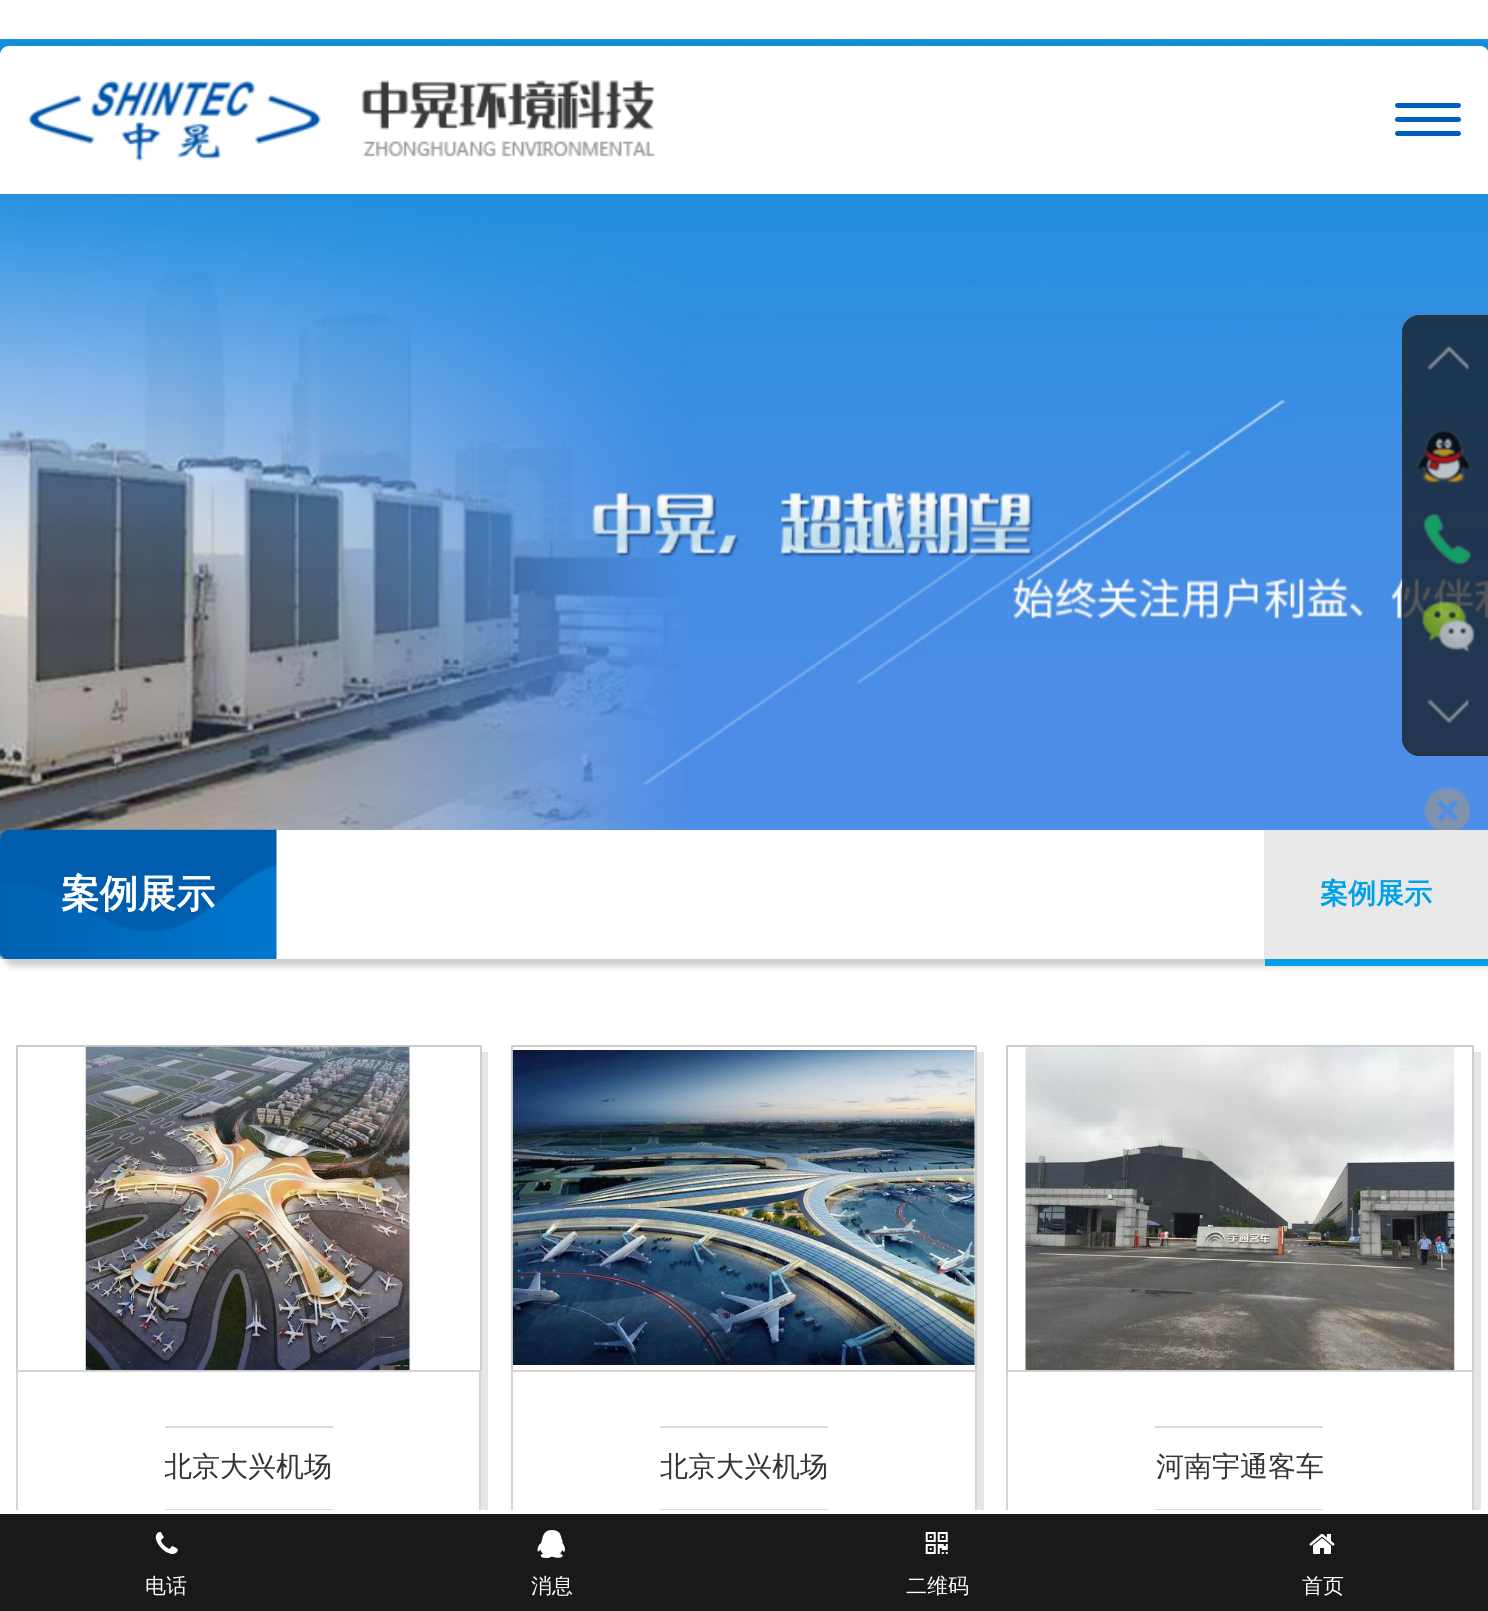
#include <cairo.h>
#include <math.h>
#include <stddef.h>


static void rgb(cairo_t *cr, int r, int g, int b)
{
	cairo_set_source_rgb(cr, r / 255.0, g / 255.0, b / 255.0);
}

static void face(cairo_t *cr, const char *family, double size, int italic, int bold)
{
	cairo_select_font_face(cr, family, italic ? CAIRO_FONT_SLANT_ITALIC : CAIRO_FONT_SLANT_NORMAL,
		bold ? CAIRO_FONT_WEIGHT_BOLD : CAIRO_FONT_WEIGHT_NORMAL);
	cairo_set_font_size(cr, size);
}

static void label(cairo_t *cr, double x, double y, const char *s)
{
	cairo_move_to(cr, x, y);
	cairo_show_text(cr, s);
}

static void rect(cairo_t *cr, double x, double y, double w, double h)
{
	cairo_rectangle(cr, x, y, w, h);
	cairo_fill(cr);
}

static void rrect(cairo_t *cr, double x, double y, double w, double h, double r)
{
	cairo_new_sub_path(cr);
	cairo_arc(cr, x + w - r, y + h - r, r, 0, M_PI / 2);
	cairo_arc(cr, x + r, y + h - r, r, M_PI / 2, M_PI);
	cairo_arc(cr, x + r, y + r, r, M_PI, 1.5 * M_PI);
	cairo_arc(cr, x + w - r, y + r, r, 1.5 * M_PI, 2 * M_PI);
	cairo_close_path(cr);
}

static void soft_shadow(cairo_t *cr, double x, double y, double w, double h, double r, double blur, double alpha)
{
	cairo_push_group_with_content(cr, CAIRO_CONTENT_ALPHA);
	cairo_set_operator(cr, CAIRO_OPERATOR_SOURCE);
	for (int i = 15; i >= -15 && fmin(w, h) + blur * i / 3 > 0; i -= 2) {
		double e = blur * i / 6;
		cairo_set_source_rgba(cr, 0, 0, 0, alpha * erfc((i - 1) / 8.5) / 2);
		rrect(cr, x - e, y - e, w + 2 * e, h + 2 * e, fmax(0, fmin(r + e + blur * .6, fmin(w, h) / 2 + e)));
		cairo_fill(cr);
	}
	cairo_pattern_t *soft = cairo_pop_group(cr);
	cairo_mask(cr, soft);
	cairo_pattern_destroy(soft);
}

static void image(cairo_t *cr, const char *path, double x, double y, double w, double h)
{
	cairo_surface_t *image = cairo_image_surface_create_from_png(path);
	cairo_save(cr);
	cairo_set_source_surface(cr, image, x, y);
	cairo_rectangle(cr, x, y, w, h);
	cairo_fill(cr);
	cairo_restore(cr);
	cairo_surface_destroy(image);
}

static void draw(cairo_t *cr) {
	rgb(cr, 255, 255, 255);
	cairo_paint(cr);
	image(cr, "image0.png", 0, 39, 1488, 800);
	rgb(cr, 255, 255, 255);
	cairo_new_path(cr);
	cairo_move_to(cr, 9, 46);
	cairo_line_to(cr, 1480, 46);
	cairo_curve_to(cr, 1485, 46, 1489, 50, 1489, 55);
	cairo_line_to(cr, 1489, 194);
	cairo_line_to(cr, 0, 194);
	cairo_line_to(cr, 0, 55);
	cairo_curve_to(cr, 0, 50, 4, 46, 9, 46);
	cairo_close_path(cr);
	cairo_fill(cr);
	image(cr, "image1.png", 27, 80, 628, 82);
	rgb(cr, 0, 93, 193);
	rrect(cr, 1395, 103, 66, 5, 2.5);
	cairo_fill(cr);
	rrect(cr, 1395, 117, 66, 5, 2.5);
	cairo_fill(cr);
	rrect(cr, 1395, 131, 66, 5, 2.5);
	cairo_fill(cr);
	cairo_set_source_rgba(cr, 0.067, 0.067, 0.067, 0.7);
	cairo_new_path(cr);
	cairo_move_to(cr, 1420, 315);
	cairo_line_to(cr, 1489, 315);
	cairo_line_to(cr, 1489, 756);
	cairo_line_to(cr, 1420, 756);
	cairo_curve_to(cr, 1410, 756, 1402, 748, 1402, 738);
	cairo_line_to(cr, 1402, 333);
	cairo_curve_to(cr, 1402, 323, 1410, 315, 1420, 315);
	cairo_close_path(cr);
	cairo_fill(cr);
	cairo_set_source_rgba(cr, 0.2, 0.2, 0.2, 0.7);
	cairo_set_fill_rule(cr, CAIRO_FILL_RULE_EVEN_ODD);
	cairo_new_path(cr);
	cairo_move_to(cr, 1419, 315);
	cairo_line_to(cr, 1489, 315);
	cairo_line_to(cr, 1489, 756);
	cairo_line_to(cr, 1419, 756);
	cairo_curve_to(cr, 1410, 756, 1402, 748, 1402, 738);
	cairo_line_to(cr, 1402, 332);
	cairo_curve_to(cr, 1402, 323, 1410, 315, 1419, 315);
	cairo_close_path(cr);
	cairo_move_to(cr, 1419, 317);
	cairo_line_to(cr, 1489, 317);
	cairo_line_to(cr, 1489, 754);
	cairo_line_to(cr, 1419, 754);
	cairo_curve_to(cr, 1411, 754, 1404, 747, 1404, 738);
	cairo_line_to(cr, 1404, 332);
	cairo_curve_to(cr, 1404, 324, 1411, 317, 1419, 317);
	cairo_close_path(cr);
	cairo_fill(cr);
	image(cr, "image2.png", 1427, 346, 42, 24);
	image(cr, "image3.png", 1417, 430, 52, 54);
	image(cr, "image4.png", 1423, 513, 48, 52);
	image(cr, "image5.png", 1422, 601, 53, 51);
	image(cr, "image6.png", 1427, 699, 42, 25);
	image(cr, "image7.png", 1424, 787, 46, 43);
	rgb(cr, 204, 204, 204);
	soft_shadow(cr, 4, 837, 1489, 129, 9, 3.5, 1);
	rgb(cr, 255, 255, 255);
	cairo_new_path(cr);
	cairo_move_to(cr, 9, 830);
	cairo_line_to(cr, 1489, 830);
	cairo_line_to(cr, 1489, 959);
	cairo_line_to(cr, 0, 959);
	cairo_line_to(cr, 0, 839);
	cairo_curve_to(cr, 0, 834, 4, 830, 9, 830);
	cairo_close_path(cr);
	cairo_fill(cr);
	image(cr, "image8.png", 0, 829, 277, 130);
	face(cr, "WenQuanYi Zen Hei", 38.5, 0, 1);
	label(cr, 61, 907, "案例展示");
	rgb(cr, 233, 233, 233);
	rect(cr, 1264, 830, 224, 129);
	face(cr, "WenQuanYi Zen Hei", 28, 0, 1);
	rgb(cr, 0, 161, 233);
	label(cr, 1320, 903, "案例展示");
	rect(cr, 1265, 959, 223, 7);
	rgb(cr, 229, 229, 229);
	cairo_set_fill_rule(cr, CAIRO_FILL_RULE_WINDING);
	cairo_new_path(cr);
	cairo_move_to(cr, 23, 1566);
	cairo_line_to(cr, 23, 1573);
	cairo_line_to(cr, 488, 1573);
	cairo_line_to(cr, 488, 1052);
	cairo_line_to(cr, 481, 1052);
	cairo_line_to(cr, 481, 1566);
	cairo_close_path(cr);
	cairo_fill(cr);
	rgb(cr, 204, 204, 204);
	rect(cr, 16, 1045, 465, 2);
	rect(cr, 480, 1045, 2, 325);
	rect(cr, 16, 1045, 2, 325);
	cairo_rectangle(cr, 17, 1371, 463, 194);
	rgb(cr, 212, 212, 212);
	cairo_stroke(cr);
	image(cr, "image9.png", 85, 1046, 325, 325);
	rgb(cr, 218, 219, 221);
	rect(cr, 165, 1426, 168, 2);
	rect(cr, 165, 1509, 168, 1);
	cairo_save(cr);
	cairo_rectangle(cr, 165, 1428, 168, 81);
	cairo_clip(cr);
	face(cr, "WenQuanYi Zen Hei Medium", 28, 0, 0);
	rgb(cr, 51, 51, 51);
	label(cr, 164, 1476, "北京大兴机场");
	cairo_restore(cr);
	rgb(cr, 229, 229, 229);
	cairo_new_path(cr);
	cairo_move_to(cr, 518, 1566);
	cairo_line_to(cr, 518, 1573);
	cairo_line_to(cr, 984, 1573);
	cairo_line_to(cr, 984, 1052);
	cairo_line_to(cr, 976, 1052);
	cairo_line_to(cr, 976, 1566);
	cairo_close_path(cr);
	cairo_fill(cr);
	rgb(cr, 204, 204, 204);
	rect(cr, 511, 1045, 466, 2);
	rect(cr, 975, 1045, 2, 325);
	rect(cr, 511, 1045, 2, 325);
	image(cr, "image10.png", 512, 1050, 463, 315);
	cairo_rectangle(cr, 512, 1371, 464, 194);
	rgb(cr, 212, 212, 212);
	cairo_stroke(cr);
	rgb(cr, 218, 219, 221);
	rect(cr, 660, 1426, 168, 2);
	rect(cr, 660, 1509, 168, 1);
	face(cr, "WenQuanYi Zen Hei Medium", 28, 0, 0);
	rgb(cr, 51, 51, 51);
	label(cr, 660, 1476, "北京大兴机场");
	rgb(cr, 229, 229, 229);
	cairo_new_path(cr);
	cairo_move_to(cr, 1013, 1566);
	cairo_line_to(cr, 1013, 1573);
	cairo_line_to(cr, 1481, 1573);
	cairo_line_to(cr, 1481, 1052);
	cairo_line_to(cr, 1474, 1052);
	cairo_line_to(cr, 1474, 1566);
	cairo_close_path(cr);
	cairo_fill(cr);
	rgb(cr, 204, 204, 204);
	rect(cr, 1006, 1045, 468, 2);
	rect(cr, 1472, 1045, 2, 325);
	rect(cr, 1006, 1045, 2, 325);
	cairo_rectangle(cr, 1007, 1371, 466, 194);
	rgb(cr, 212, 212, 212);
	cairo_stroke(cr);
	image(cr, "image11.png", 1025, 1046, 430, 325);
	rgb(cr, 218, 219, 221);
	rect(cr, 1155, 1426, 168, 2);
	rect(cr, 1155, 1509, 168, 1);
	rgb(cr, 51, 51, 51);
	label(cr, 1156, 1476, "河南宇通客车");
	rgb(cr, 25, 25, 25);
	rect(cr, 0, 1514, 1488, 97);
	rgb(cr, 255, 255, 255);
	rect(cr, 16, 1510, 1472, 4);
	image(cr, "image12.png", 155, 1532, 23, 22);
	face(cr, "WenQuanYi Zen Hei Medium", 21, 0, 0);
	label(cr, 145, 1593, "电话");
	image(cr, "image13.png", 537, 1530, 28, 28);
	label(cr, 531, 1593, "消息");
	image(cr, "image14.png", 925, 1532, 23, 22);
	label(cr, 906, 1593, "二维码");
	image(cr, "image15.png", 1309, 1534, 26, 20);
	label(cr, 1302, 1593, "首页");
}

int main(void) {
	cairo_surface_t *surface = cairo_image_surface_create(CAIRO_FORMAT_RGB24, 1488, 1611);
	cairo_t *cr = cairo_create(surface);
	cairo_font_options_t *options = cairo_font_options_create();
	cairo_font_options_set_hint_metrics(options, CAIRO_HINT_METRICS_OFF);
	cairo_font_options_set_hint_style(options, CAIRO_HINT_STYLE_NONE);
	cairo_set_font_options(cr, options);
	cairo_set_miter_limit(cr, 4);
	draw(cr);
	cairo_surface_write_to_png(surface, "render.png");
	cairo_font_options_destroy(options);
	cairo_destroy(cr);
	cairo_surface_destroy(surface);
	return 0;
}
